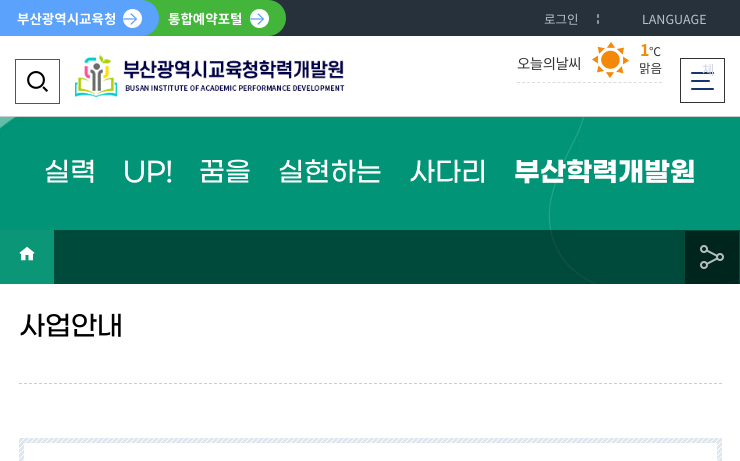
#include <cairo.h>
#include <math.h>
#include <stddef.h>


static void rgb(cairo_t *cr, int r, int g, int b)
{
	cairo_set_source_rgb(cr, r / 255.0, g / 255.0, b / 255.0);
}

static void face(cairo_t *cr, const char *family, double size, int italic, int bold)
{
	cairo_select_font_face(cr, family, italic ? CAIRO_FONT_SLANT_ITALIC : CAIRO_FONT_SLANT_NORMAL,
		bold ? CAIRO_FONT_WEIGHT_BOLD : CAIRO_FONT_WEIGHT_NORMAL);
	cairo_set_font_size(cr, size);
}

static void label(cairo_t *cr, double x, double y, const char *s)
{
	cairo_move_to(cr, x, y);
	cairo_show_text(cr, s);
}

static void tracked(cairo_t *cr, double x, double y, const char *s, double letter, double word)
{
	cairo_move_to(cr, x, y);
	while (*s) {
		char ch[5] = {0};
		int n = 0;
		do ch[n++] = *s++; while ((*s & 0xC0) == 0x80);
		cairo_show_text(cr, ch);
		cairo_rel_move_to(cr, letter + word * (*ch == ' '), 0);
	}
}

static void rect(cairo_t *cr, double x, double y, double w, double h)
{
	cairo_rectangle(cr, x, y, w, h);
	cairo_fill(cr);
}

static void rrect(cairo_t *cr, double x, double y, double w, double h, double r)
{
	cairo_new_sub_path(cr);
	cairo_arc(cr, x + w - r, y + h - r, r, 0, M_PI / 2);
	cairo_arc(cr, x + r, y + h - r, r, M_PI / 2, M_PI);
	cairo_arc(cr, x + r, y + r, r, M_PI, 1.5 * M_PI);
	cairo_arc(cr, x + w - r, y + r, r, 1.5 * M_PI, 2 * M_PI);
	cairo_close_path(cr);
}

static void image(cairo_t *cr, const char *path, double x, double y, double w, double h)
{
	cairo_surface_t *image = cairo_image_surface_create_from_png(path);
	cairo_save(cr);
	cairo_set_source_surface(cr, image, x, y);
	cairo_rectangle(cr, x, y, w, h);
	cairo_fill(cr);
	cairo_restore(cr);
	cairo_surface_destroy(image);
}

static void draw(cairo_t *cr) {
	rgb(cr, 255, 255, 255);
	cairo_paint(cr);
	rgb(cr, 204, 204, 204);
	rect(cr, 0, 116, 740, 1);
	rgb(cr, 39, 49, 60);
	rect(cr, 268, 0, 472, 36);
	rgb(cr, 67, 181, 58);
	cairo_new_path(cr);
	cairo_move_to(cr, 141, 0);
	cairo_line_to(cr, 268, 0);
	cairo_curve_to(cr, 278, 0, 286, 8, 286, 18);
	cairo_curve_to(cr, 286, 28, 278, 36, 268, 36);
	cairo_line_to(cr, 141, 36);
	cairo_close_path(cr);
	cairo_fill(cr);
	rgb(cr, 90, 162, 251);
	cairo_new_path(cr);
	cairo_move_to(cr, 15, 0);
	cairo_line_to(cr, 141, 0);
	cairo_curve_to(cr, 151, 0, 159, 8, 159, 18);
	cairo_curve_to(cr, 159, 28, 151, 36, 141, 36);
	cairo_line_to(cr, 15, 36);
	cairo_close_path(cr);
	cairo_fill(cr);
	rect(cr, 0, 0, 15, 36);
	face(cr, "Noto Sans KR", 13.5, 0, 1);
	rgb(cr, 255, 255, 255);
	label(cr, 17, 24, "부산광역시교육청");
	image(cr, "image0.png", 123, 9, 19, 19);
	label(cr, 168, 24, "통합예약포털");
	image(cr, "image1.png", 250, 9, 19, 19);
	face(cr, "Noto Sans KR", 12.5, 0, 0);
	rgb(cr, 186, 194, 202);
	label(cr, 544, 24, "로그인");
	image(cr, "image2.png", 597, 14, 2, 10);
	label(cr, 642, 24, "LANGUAGE");
	cairo_rectangle(cr, 15.5, 59.5, 44, 44);
	rgb(cr, 85, 85, 85);
	cairo_set_line_width(cr, 1);
	cairo_stroke(cr);
	image(cr, "image3.png", 27, 71, 21, 21);
	image(cr, "image4.png", 75, 55, 270, 42);
	face(cr, "Noto Sans KR", 14.5, 0, 0);
	rgb(cr, 51, 51, 51);
	tracked(cr, 517, 69, "오늘의날씨", -0.5, 0);
	image(cr, "image5.png", 592, 42, 37, 36);
	face(cr, "Noto Sans KR", 16, 0, 1);
	rgb(cr, 243, 136, 9);
	label(cr, 640, 56, "1");
	face(cr, "Noto Sans KR", 12, 0, 0);
	rgb(cr, 51, 51, 51);
	label(cr, 649, 56, "℃");
	face(cr, "Noto Sans KR", 12.5, 0, 0);
	label(cr, 639, 73, "맑음");
	cairo_new_path(cr);
	cairo_move_to(cr, 517, 82.5);
	cairo_line_to(cr, 662, 82.5);
	rgb(cr, 220, 220, 220);
	cairo_set_dash(cr, (double[]){3, 2.07}, 2, 0);
	cairo_stroke(cr);
	cairo_rectangle(cr, 680.5, 58.5, 44, 44);
	rgb(cr, 51, 51, 51);
	cairo_set_dash(cr, NULL, 0, 0);
	cairo_stroke(cr);
	rgb(cr, 23, 53, 110);
	rrect(cr, 691, 72, 23, 2, 1);
	cairo_fill(cr);
	face(cr, "Noto Sans KR", 13.5, 0, 0);
	rgb(cr, 209, 215, 226);
	label(cr, 702, 75, "체");
	rgb(cr, 23, 53, 110);
	rrect(cr, 691, 80, 19, 2, 1);
	cairo_fill(cr);
	rrect(cr, 691, 88, 23, 2, 1);
	cairo_fill(cr);
	image(cr, "image6.png", 0, 117, 740, 167);
	face(cr, "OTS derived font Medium", 27, 0, 0);
	rgb(cr, 255, 255, 255);
	label(cr, 44, 180, "실력");
	label(cr, 123, 180, "UP!");
	label(cr, 199, 180, "꿈을");
	label(cr, 278, 180, "실현하는");
	label(cr, 409, 180, "사다리");
	face(cr, "OTS derived font", 27, 0, 1);
	label(cr, 514, 180, "부산학력개발원");
	cairo_set_source_rgba(cr, 0, 0, 0, 0.5);
	rect(cr, 54, 230, 686, 54);
	rgb(cr, 12, 150, 120);
	rect(cr, 0, 230, 54, 54);
	image(cr, "image7.png", 19, 246, 16, 15);
	cairo_new_path(cr);
	cairo_move_to(cr, 19, 383.5);
	cairo_line_to(cr, 722, 383.5);
	rgb(cr, 204, 204, 204);
	cairo_set_dash(cr, (double[]){3, 2}, 2, 0);
	cairo_stroke(cr);
	cairo_set_source_rgba(cr, 0, 0, 0, 0.5);
	rect(cr, 685, 231, 54, 53);
	image(cr, "image8.png", 700, 245, 24, 24);
	face(cr, "OTS derived font Medium", 27, 0, 0);
	rgb(cr, 0, 0, 0);
	label(cr, 19, 334, "사업안내");
	rgb(cr, 223, 230, 238);
	rect(cr, 19, 438, 703, 23);
	image(cr, "image9.png", 19, 438, 703, 23);
	rgb(cr, 255, 255, 255);
	rect(cr, 24, 443, 693, 18);
}

int main(void) {
	cairo_surface_t *surface = cairo_image_surface_create(CAIRO_FORMAT_RGB24, 740, 461);
	cairo_t *cr = cairo_create(surface);
	cairo_font_options_t *options = cairo_font_options_create();
	cairo_font_options_set_hint_metrics(options, CAIRO_HINT_METRICS_OFF);
	cairo_font_options_set_hint_style(options, CAIRO_HINT_STYLE_NONE);
	cairo_set_font_options(cr, options);
	cairo_set_miter_limit(cr, 4);
	draw(cr);
	cairo_surface_write_to_png(surface, "render.png");
	cairo_font_options_destroy(options);
	cairo_destroy(cr);
	cairo_surface_destroy(surface);
	return 0;
}
